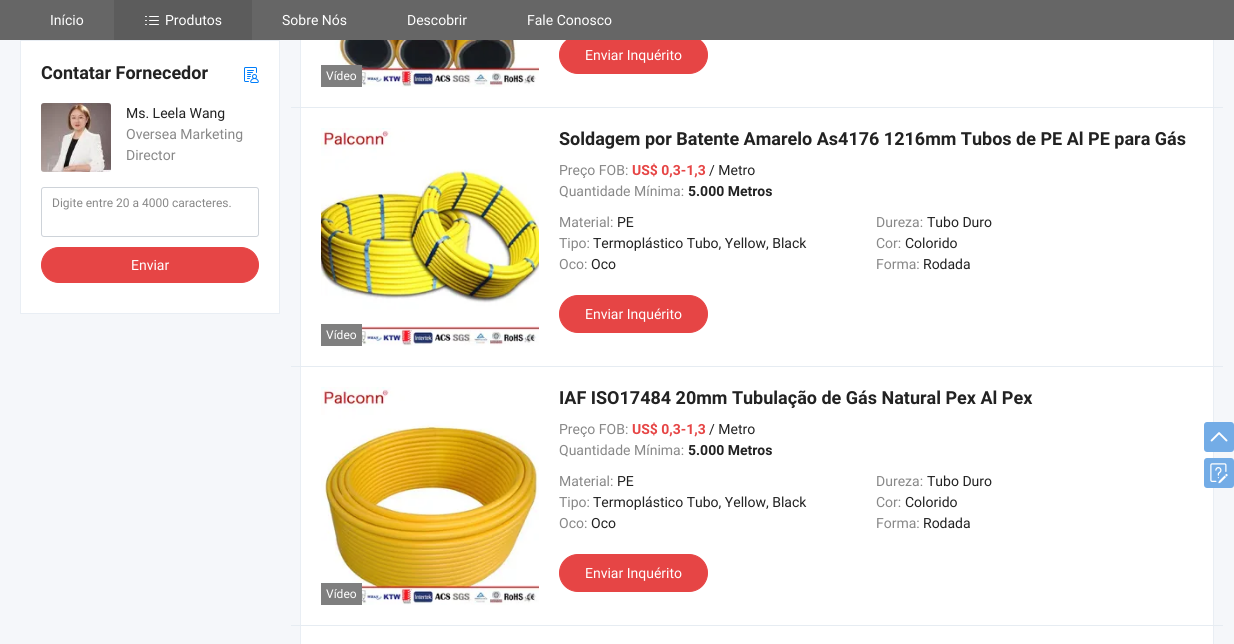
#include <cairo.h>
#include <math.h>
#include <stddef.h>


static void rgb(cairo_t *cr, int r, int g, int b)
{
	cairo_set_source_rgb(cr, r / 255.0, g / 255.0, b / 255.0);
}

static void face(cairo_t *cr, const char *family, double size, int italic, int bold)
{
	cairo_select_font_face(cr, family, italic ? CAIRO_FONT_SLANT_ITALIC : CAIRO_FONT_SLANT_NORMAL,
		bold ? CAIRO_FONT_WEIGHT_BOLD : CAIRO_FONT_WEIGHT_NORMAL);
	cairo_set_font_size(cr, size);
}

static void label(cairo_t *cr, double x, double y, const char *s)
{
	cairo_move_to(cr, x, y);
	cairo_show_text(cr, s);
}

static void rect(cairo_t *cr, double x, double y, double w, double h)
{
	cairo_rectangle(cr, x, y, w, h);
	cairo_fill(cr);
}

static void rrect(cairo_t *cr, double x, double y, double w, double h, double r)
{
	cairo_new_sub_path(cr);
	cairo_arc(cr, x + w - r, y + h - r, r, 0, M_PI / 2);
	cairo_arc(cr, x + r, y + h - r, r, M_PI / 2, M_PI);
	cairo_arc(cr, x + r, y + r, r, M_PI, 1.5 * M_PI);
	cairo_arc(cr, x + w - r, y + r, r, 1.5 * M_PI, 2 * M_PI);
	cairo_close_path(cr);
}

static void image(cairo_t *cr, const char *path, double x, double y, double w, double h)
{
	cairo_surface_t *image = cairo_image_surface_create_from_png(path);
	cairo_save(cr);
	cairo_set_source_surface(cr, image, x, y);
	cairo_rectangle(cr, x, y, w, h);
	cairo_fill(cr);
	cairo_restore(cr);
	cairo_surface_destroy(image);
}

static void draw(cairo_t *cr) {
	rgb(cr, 245, 247, 250);
	cairo_paint(cr);
	rgb(cr, 255, 255, 255);
	rect(cr, 301, 40, 912, 604);
	cairo_rectangle(cr, 300.5, -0.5, 913, 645);
	rgb(cr, 233, 238, 244);
	cairo_set_line_width(cr, 1);
	cairo_stroke(cr);
	rgb(cr, 230, 69, 69);
	rrect(cr, 559.5, 36.5, 148, 37, 18.5);
	cairo_fill_preserve(cr);
	cairo_stroke(cr);
	rgb(cr, 102, 102, 102);
	rect(cr, 0, 0, 1234, 40);
	face(cr, "Roboto", 14, 0, 0);
	rgb(cr, 255, 255, 255);
	label(cr, 50, 25, "Início");
	rgb(cr, 92, 92, 92);
	rect(cr, 114, 0, 138, 40);
	image(cr, "image0.png", 145, 16, 14, 9);
	rgb(cr, 255, 255, 255);
	label(cr, 165, 25, "Produtos");
	label(cr, 282, 25, "Sobre Nós");
	label(cr, 407, 25, "Descobrir");
	label(cr, 527, 25, "Fale Conosco");
	cairo_rectangle(cr, 20.5, 40.5, 259, 273);
	cairo_fill_preserve(cr);
	rgb(cr, 233, 238, 244);
	cairo_stroke(cr);
	face(cr, "Roboto", 18, 0, 1);
	rgb(cr, 34, 34, 34);
	label(cr, 41, 79, "Contatar Fornecedor");
	image(cr, "image1.png", 244, 67, 15, 16);
	image(cr, "image2.png", 41, 103, 70, 69);
	face(cr, "Roboto", 14, 0, 0);
	label(cr, 126, 118, "Ms. Leela Wang");
	rgb(cr, 136, 136, 136);
	label(cr, 126, 139, "Oversea Marketing");
	label(cr, 126, 160, "Director");
	rrect(cr, 41.5, 187.5, 217, 49, 2.5);
	rgb(cr, 206, 211, 217);
	cairo_stroke(cr);
	face(cr, "Roboto", 12, 0, 0);
	rgb(cr, 136, 136, 136);
	label(cr, 52, 207, "Digite entre 20 a 4000 caracteres.");
	rgb(cr, 230, 69, 69);
	rrect(cr, 41.5, 247.5, 217, 35, 17.5);
	cairo_fill_preserve(cr);
	cairo_stroke(cr);
	face(cr, "Roboto", 14, 0, 0);
	rgb(cr, 255, 255, 255);
	label(cr, 131, 270, "Enviar");
	rgb(cr, 230, 236, 242);
	rect(cr, 291, 107, 932, 1);
	rgb(cr, 255, 255, 255);
	label(cr, 585, 60, "Enviar Inquérito");
	image(cr, "image3.png", 321, 40, 218, 47);
	rgb(cr, 127, 127, 127);
	rect(cr, 321, 65, 41, 22);
	face(cr, "Roboto", 12, 0, 0);
	rgb(cr, 255, 255, 255);
	label(cr, 326, 80, "Vídeo");
	rgb(cr, 230, 236, 242);
	rect(cr, 291, 366, 932, 1);
	face(cr, "Roboto", 18, 0, 1);
	rgb(cr, 34, 34, 34);
	label(cr, 559, 145, "Soldagem por Batente Amarelo As4176 1216mm Tubos de PE Al PE para Gás");
	face(cr, "Roboto", 14, 0, 0);
	rgb(cr, 136, 136, 136);
	label(cr, 559, 175, "Preço FOB:");
	face(cr, "Roboto", 14, 0, 1);
	rgb(cr, 230, 69, 69);
	label(cr, 632, 175, "US$ 0,3-1,3");
	face(cr, "Roboto", 14, 0, 0);
	rgb(cr, 34, 34, 34);
	label(cr, 709, 175, "/ Metro");
	rgb(cr, 136, 136, 136);
	label(cr, 559, 196, "Quantidade Mínima:");
	face(cr, "Roboto", 14, 0, 1);
	rgb(cr, 34, 34, 34);
	label(cr, 688, 196, "5.000 Metros");
	face(cr, "Roboto", 14, 0, 0);
	rgb(cr, 136, 136, 136);
	label(cr, 559, 227, "Material:");
	rgb(cr, 34, 34, 34);
	label(cr, 617, 227, "PE");
	rgb(cr, 136, 136, 136);
	label(cr, 876, 227, "Dureza:");
	rgb(cr, 34, 34, 34);
	label(cr, 927, 227, "Tubo Duro");
	rgb(cr, 136, 136, 136);
	label(cr, 559, 248, "Tipo:");
	rgb(cr, 34, 34, 34);
	label(cr, 593, 248, "Termoplástico Tubo, Yellow, Black");
	rgb(cr, 136, 136, 136);
	label(cr, 876, 248, "Cor:");
	rgb(cr, 34, 34, 34);
	label(cr, 905, 248, "Colorido");
	rgb(cr, 136, 136, 136);
	label(cr, 559, 269, "Oco:");
	rgb(cr, 34, 34, 34);
	label(cr, 591, 269, "Oco");
	rgb(cr, 136, 136, 136);
	label(cr, 876, 269, "Forma:");
	rgb(cr, 34, 34, 34);
	label(cr, 923, 269, "Rodada");
	rgb(cr, 230, 69, 69);
	rrect(cr, 559.5, 295.5, 148, 37, 18.5);
	cairo_fill_preserve(cr);
	cairo_stroke(cr);
	rgb(cr, 255, 255, 255);
	label(cr, 585, 319, "Enviar Inquérito");
	image(cr, "image4.png", 321, 128, 218, 218);
	rgb(cr, 127, 127, 127);
	rect(cr, 321, 324, 41, 22);
	face(cr, "Roboto", 12, 0, 0);
	rgb(cr, 255, 255, 255);
	label(cr, 326, 339, "Vídeo");
	rgb(cr, 230, 236, 242);
	rect(cr, 291, 625, 932, 1);
	face(cr, "Roboto", 18, 0, 1);
	rgb(cr, 34, 34, 34);
	label(cr, 559, 404, "IAF ISO17484 20mm Tubulação de Gás Natural Pex Al Pex");
	face(cr, "Roboto", 14, 0, 0);
	rgb(cr, 136, 136, 136);
	label(cr, 559, 434, "Preço FOB:");
	face(cr, "Roboto", 14, 0, 1);
	rgb(cr, 230, 69, 69);
	label(cr, 632, 434, "US$ 0,3-1,3");
	face(cr, "Roboto", 14, 0, 0);
	rgb(cr, 34, 34, 34);
	label(cr, 709, 434, "/ Metro");
	rgb(cr, 136, 136, 136);
	label(cr, 559, 455, "Quantidade Mínima:");
	face(cr, "Roboto", 14, 0, 1);
	rgb(cr, 34, 34, 34);
	label(cr, 688, 455, "5.000 Metros");
	face(cr, "Roboto", 14, 0, 0);
	rgb(cr, 136, 136, 136);
	label(cr, 559, 486, "Material:");
	rgb(cr, 34, 34, 34);
	label(cr, 617, 486, "PE");
	rgb(cr, 136, 136, 136);
	label(cr, 876, 486, "Dureza:");
	rgb(cr, 34, 34, 34);
	label(cr, 927, 486, "Tubo Duro");
	rgb(cr, 136, 136, 136);
	label(cr, 559, 507, "Tipo:");
	rgb(cr, 34, 34, 34);
	label(cr, 593, 507, "Termoplástico Tubo, Yellow, Black");
	rgb(cr, 136, 136, 136);
	label(cr, 876, 507, "Cor:");
	rgb(cr, 34, 34, 34);
	label(cr, 905, 507, "Colorido");
	rgb(cr, 136, 136, 136);
	label(cr, 559, 528, "Oco:");
	rgb(cr, 34, 34, 34);
	label(cr, 591, 528, "Oco");
	rgb(cr, 136, 136, 136);
	label(cr, 876, 528, "Forma:");
	rgb(cr, 34, 34, 34);
	label(cr, 923, 528, "Rodada");
	rgb(cr, 230, 69, 69);
	rrect(cr, 559.5, 554.5, 148, 37, 18.5);
	cairo_fill_preserve(cr);
	cairo_stroke(cr);
	rgb(cr, 255, 255, 255);
	label(cr, 585, 578, "Enviar Inquérito");
	image(cr, "image5.png", 321, 387, 218, 218);
	rgb(cr, 127, 127, 127);
	rect(cr, 321, 583, 41, 22);
	face(cr, "Roboto", 12, 0, 0);
	rgb(cr, 255, 255, 255);
	label(cr, 326, 598, "Vídeo");
	rgb(cr, 115, 172, 230);
	rrect(cr, 1204, 422, 30, 30, 3);
	cairo_fill(cr);
	image(cr, "image6.png", 1210, 432, 18, 10);
	rrect(cr, 1204, 458, 30, 30, 3);
	cairo_fill(cr);
	image(cr, "image7.png", 1210, 463, 18, 21);
}

int main(void) {
	cairo_surface_t *surface = cairo_image_surface_create(CAIRO_FORMAT_RGB24, 1234, 644);
	cairo_t *cr = cairo_create(surface);
	cairo_font_options_t *options = cairo_font_options_create();
	cairo_font_options_set_hint_metrics(options, CAIRO_HINT_METRICS_OFF);
	cairo_font_options_set_hint_style(options, CAIRO_HINT_STYLE_NONE);
	cairo_set_font_options(cr, options);
	cairo_set_miter_limit(cr, 4);
	draw(cr);
	cairo_surface_write_to_png(surface, "render.png");
	cairo_font_options_destroy(options);
	cairo_destroy(cr);
	cairo_surface_destroy(surface);
	return 0;
}
